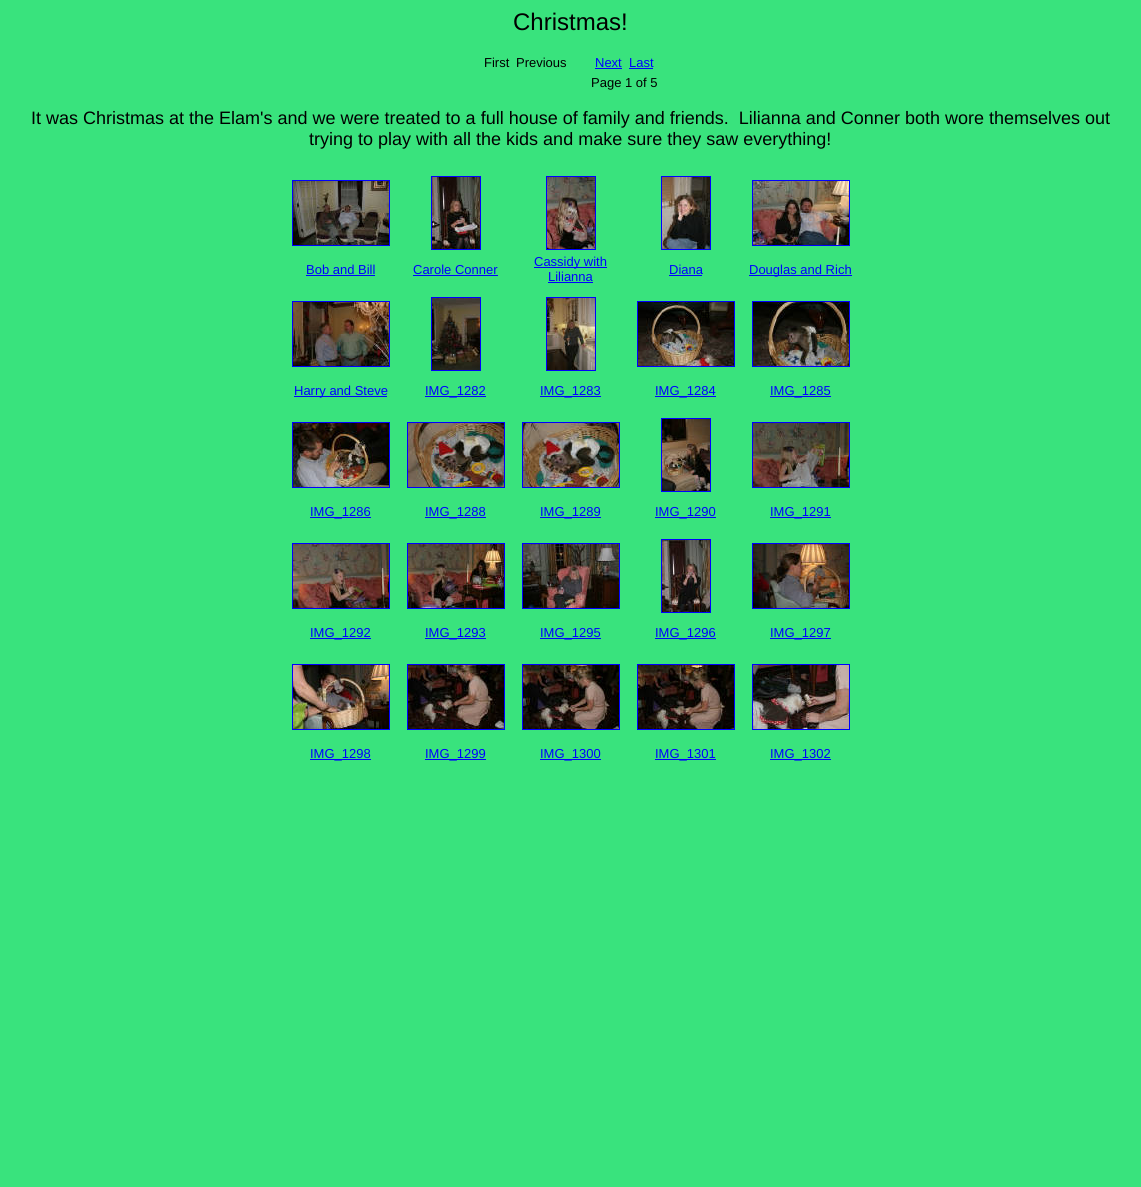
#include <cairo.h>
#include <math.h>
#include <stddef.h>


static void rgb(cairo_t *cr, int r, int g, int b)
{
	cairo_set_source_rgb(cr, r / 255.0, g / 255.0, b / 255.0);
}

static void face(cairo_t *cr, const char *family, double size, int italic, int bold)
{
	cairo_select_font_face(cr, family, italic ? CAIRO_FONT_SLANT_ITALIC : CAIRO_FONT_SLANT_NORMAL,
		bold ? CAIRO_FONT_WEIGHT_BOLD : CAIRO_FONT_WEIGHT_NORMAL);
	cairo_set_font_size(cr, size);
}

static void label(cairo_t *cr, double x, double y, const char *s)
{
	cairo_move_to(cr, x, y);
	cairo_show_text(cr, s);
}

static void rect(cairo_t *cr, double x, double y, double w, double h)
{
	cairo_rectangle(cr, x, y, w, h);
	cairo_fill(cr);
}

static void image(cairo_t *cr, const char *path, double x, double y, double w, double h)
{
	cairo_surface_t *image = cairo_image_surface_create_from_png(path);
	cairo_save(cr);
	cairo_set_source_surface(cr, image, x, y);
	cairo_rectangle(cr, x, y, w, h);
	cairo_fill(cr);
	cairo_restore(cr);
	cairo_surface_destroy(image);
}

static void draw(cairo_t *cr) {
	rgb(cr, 57, 227, 125);
	cairo_paint(cr);
	face(cr, "Liberation Sans", 24, 0, 0);
	rgb(cr, 0, 0, 0);
	label(cr, 513, 30, "Christmas!");
	face(cr, "Liberation Sans", 13, 0, 0);
	label(cr, 484, 67, "First");
	label(cr, 516, 67, "Previous");
	rgb(cr, 0, 0, 255);
	label(cr, 595, 67, "Next");
	rect(cr, 595, 68, 27, 1);
	label(cr, 629, 67, "Last");
	rect(cr, 629, 68, 24, 1);
	rgb(cr, 0, 0, 0);
	label(cr, 591, 87, "Page 1 of 5");
	face(cr, "Liberation Sans", 18, 0, 0);
	label(cr, 31, 124, "It was Christmas at the Elam's and we were treated to a full house of family and friends.  Lilianna and Conner both wore themselves out");
	label(cr, 309, 145, "trying to play with all the kids and make sure they saw everything!");
	cairo_rectangle(cr, 292.5, 180.5, 97, 65);
	rgb(cr, 0, 0, 255);
	cairo_set_line_width(cr, 1);
	cairo_stroke(cr);
	image(cr, "image0.png", 293, 181, 96, 64);
	face(cr, "Liberation Sans", 13, 0, 0);
	label(cr, 306, 274, "Bob and Bill");
	rect(cr, 306, 275, 69, 1);
	cairo_rectangle(cr, 431.5, 176.5, 49, 73);
	cairo_stroke(cr);
	image(cr, "image1.png", 432, 177, 48, 72);
	label(cr, 413, 274, "Carole Conner");
	rect(cr, 413, 275, 85, 1);
	cairo_rectangle(cr, 546.5, 176.5, 49, 73);
	cairo_stroke(cr);
	image(cr, "image2.png", 547, 177, 48, 72);
	rect(cr, 534, 267, 73, 1);
	label(cr, 534, 266, "Cassidy with");
	label(cr, 548, 281, "Lilianna");
	rect(cr, 548, 282, 45, 1);
	cairo_rectangle(cr, 661.5, 176.5, 49, 73);
	cairo_stroke(cr);
	image(cr, "image3.png", 662, 177, 48, 72);
	label(cr, 669, 274, "Diana");
	rect(cr, 669, 275, 33, 1);
	cairo_rectangle(cr, 752.5, 180.5, 97, 65);
	cairo_stroke(cr);
	image(cr, "image4.png", 753, 181, 96, 64);
	rect(cr, 749, 275, 103, 1);
	label(cr, 749, 274, "Douglas and Rich");
	cairo_rectangle(cr, 292.5, 301.5, 97, 65);
	cairo_stroke(cr);
	image(cr, "image5.png", 293, 302, 96, 64);
	rect(cr, 294, 396, 93, 1);
	label(cr, 294, 395, "Harry and Steve");
	cairo_rectangle(cr, 431.5, 297.5, 49, 73);
	cairo_stroke(cr);
	image(cr, "image6.png", 432, 298, 48, 72);
	rect(cr, 425, 396, 61, 1);
	label(cr, 425, 395, "IMG_1282");
	cairo_rectangle(cr, 546.5, 297.5, 49, 73);
	cairo_stroke(cr);
	image(cr, "image7.png", 547, 298, 48, 72);
	rect(cr, 540, 396, 61, 1);
	label(cr, 540, 395, "IMG_1283");
	cairo_rectangle(cr, 637.5, 301.5, 97, 65);
	cairo_stroke(cr);
	image(cr, "image8.png", 638, 302, 96, 64);
	rect(cr, 655, 396, 61, 1);
	label(cr, 655, 395, "IMG_1284");
	cairo_rectangle(cr, 752.5, 301.5, 97, 65);
	cairo_stroke(cr);
	image(cr, "image9.png", 753, 302, 96, 64);
	rect(cr, 770, 396, 61, 1);
	label(cr, 770, 395, "IMG_1285");
	cairo_rectangle(cr, 292.5, 422.5, 97, 65);
	cairo_stroke(cr);
	image(cr, "image10.png", 293, 423, 96, 64);
	rect(cr, 310, 517, 61, 1);
	label(cr, 310, 516, "IMG_1286");
	cairo_rectangle(cr, 407.5, 422.5, 97, 65);
	cairo_stroke(cr);
	image(cr, "image11.png", 408, 423, 96, 64);
	rect(cr, 425, 517, 61, 1);
	label(cr, 425, 516, "IMG_1288");
	cairo_rectangle(cr, 522.5, 422.5, 97, 65);
	cairo_stroke(cr);
	image(cr, "image12.png", 523, 423, 96, 64);
	rect(cr, 540, 517, 61, 1);
	label(cr, 540, 516, "IMG_1289");
	cairo_rectangle(cr, 661.5, 418.5, 49, 73);
	cairo_stroke(cr);
	image(cr, "image13.png", 662, 419, 48, 72);
	rect(cr, 655, 517, 61, 1);
	label(cr, 655, 516, "IMG_1290");
	cairo_rectangle(cr, 752.5, 422.5, 97, 65);
	cairo_stroke(cr);
	image(cr, "image14.png", 753, 423, 96, 64);
	rect(cr, 770, 517, 61, 1);
	label(cr, 770, 516, "IMG_1291");
	cairo_rectangle(cr, 292.5, 543.5, 97, 65);
	cairo_stroke(cr);
	image(cr, "image15.png", 293, 544, 96, 64);
	rect(cr, 310, 638, 61, 1);
	label(cr, 310, 637, "IMG_1292");
	cairo_rectangle(cr, 407.5, 543.5, 97, 65);
	cairo_stroke(cr);
	image(cr, "image16.png", 408, 544, 96, 64);
	rect(cr, 425, 638, 61, 1);
	label(cr, 425, 637, "IMG_1293");
	cairo_rectangle(cr, 522.5, 543.5, 97, 65);
	cairo_stroke(cr);
	image(cr, "image17.png", 523, 544, 96, 64);
	rect(cr, 540, 638, 61, 1);
	label(cr, 540, 637, "IMG_1295");
	cairo_rectangle(cr, 661.5, 539.5, 49, 73);
	cairo_stroke(cr);
	image(cr, "image18.png", 662, 540, 48, 72);
	rect(cr, 655, 638, 61, 1);
	label(cr, 655, 637, "IMG_1296");
	cairo_rectangle(cr, 752.5, 543.5, 97, 65);
	cairo_stroke(cr);
	image(cr, "image19.png", 753, 544, 96, 64);
	rect(cr, 770, 638, 61, 1);
	label(cr, 770, 637, "IMG_1297");
	cairo_rectangle(cr, 292.5, 664.5, 97, 65);
	cairo_stroke(cr);
	image(cr, "image20.png", 293, 665, 96, 64);
	rect(cr, 310, 759, 61, 1);
	label(cr, 310, 758, "IMG_1298");
	cairo_rectangle(cr, 407.5, 664.5, 97, 65);
	cairo_stroke(cr);
	image(cr, "image21.png", 408, 665, 96, 64);
	rect(cr, 425, 759, 61, 1);
	label(cr, 425, 758, "IMG_1299");
	cairo_rectangle(cr, 522.5, 664.5, 97, 65);
	cairo_stroke(cr);
	image(cr, "image22.png", 523, 665, 96, 64);
	rect(cr, 540, 759, 61, 1);
	label(cr, 540, 758, "IMG_1300");
	cairo_rectangle(cr, 637.5, 664.5, 97, 65);
	cairo_stroke(cr);
	image(cr, "image23.png", 638, 665, 96, 64);
	rect(cr, 655, 759, 61, 1);
	label(cr, 655, 758, "IMG_1301");
	cairo_rectangle(cr, 752.5, 664.5, 97, 65);
	cairo_stroke(cr);
	image(cr, "image24.png", 753, 665, 96, 64);
	rect(cr, 770, 759, 61, 1);
	label(cr, 770, 758, "IMG_1302");
}

int main(void) {
	cairo_surface_t *surface = cairo_image_surface_create(CAIRO_FORMAT_RGB24, 1141, 1187);
	cairo_t *cr = cairo_create(surface);
	cairo_font_options_t *options = cairo_font_options_create();
	cairo_font_options_set_hint_metrics(options, CAIRO_HINT_METRICS_OFF);
	cairo_font_options_set_hint_style(options, CAIRO_HINT_STYLE_NONE);
	cairo_set_font_options(cr, options);
	cairo_set_miter_limit(cr, 4);
	draw(cr);
	cairo_surface_write_to_png(surface, "render.png");
	cairo_font_options_destroy(options);
	cairo_destroy(cr);
	cairo_surface_destroy(surface);
	return 0;
}
